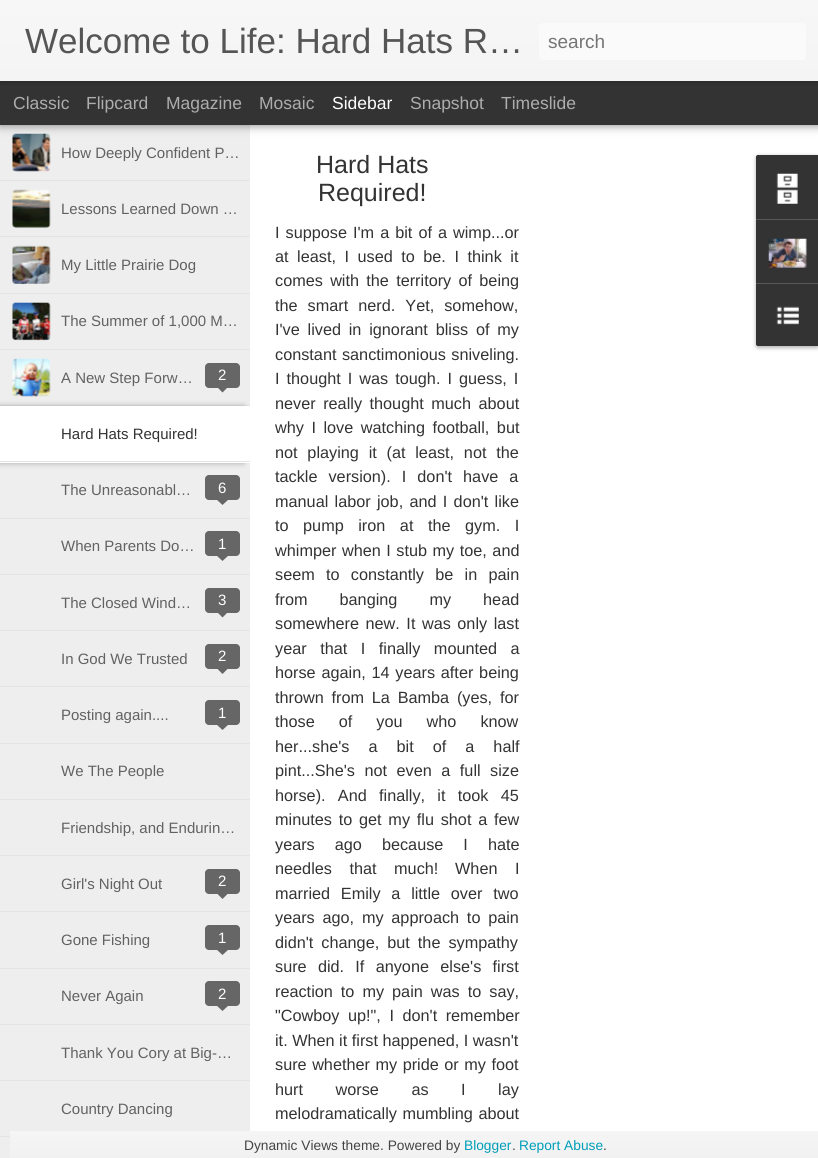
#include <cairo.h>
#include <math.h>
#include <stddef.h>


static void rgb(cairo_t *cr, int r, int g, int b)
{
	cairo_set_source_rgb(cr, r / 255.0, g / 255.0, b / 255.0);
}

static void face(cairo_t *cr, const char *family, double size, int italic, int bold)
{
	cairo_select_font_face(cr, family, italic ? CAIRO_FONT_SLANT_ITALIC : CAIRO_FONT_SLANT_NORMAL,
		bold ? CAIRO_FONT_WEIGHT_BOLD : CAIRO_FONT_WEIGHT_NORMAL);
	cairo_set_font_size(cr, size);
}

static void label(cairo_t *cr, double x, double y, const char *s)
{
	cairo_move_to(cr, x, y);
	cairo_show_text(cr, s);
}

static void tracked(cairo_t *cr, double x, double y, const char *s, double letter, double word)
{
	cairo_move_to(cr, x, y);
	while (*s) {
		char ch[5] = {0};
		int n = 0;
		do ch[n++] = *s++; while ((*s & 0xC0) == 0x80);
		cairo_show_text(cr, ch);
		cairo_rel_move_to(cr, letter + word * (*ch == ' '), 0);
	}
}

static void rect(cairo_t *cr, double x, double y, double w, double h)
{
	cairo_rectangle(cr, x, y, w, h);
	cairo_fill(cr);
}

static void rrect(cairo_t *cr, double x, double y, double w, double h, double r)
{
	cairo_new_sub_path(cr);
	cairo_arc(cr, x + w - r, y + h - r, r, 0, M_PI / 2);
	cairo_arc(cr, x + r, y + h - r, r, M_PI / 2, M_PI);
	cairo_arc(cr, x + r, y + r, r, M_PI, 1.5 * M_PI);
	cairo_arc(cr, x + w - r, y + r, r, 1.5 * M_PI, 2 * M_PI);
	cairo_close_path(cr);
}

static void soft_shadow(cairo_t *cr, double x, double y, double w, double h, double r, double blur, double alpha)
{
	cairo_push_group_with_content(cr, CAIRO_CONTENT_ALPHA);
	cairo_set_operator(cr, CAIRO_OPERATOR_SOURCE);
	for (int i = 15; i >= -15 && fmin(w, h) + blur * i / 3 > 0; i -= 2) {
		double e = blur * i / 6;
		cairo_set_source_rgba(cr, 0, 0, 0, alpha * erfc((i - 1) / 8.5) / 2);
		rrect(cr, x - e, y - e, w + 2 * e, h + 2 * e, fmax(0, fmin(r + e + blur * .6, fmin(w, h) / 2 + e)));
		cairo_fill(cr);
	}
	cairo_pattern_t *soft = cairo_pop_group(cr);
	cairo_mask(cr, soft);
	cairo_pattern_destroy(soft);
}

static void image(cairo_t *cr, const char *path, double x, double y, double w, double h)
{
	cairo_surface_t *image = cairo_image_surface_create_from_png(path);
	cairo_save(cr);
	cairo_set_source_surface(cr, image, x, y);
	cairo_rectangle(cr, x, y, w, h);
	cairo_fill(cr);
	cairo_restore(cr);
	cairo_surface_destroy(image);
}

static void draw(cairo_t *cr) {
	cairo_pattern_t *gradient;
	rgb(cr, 255, 255, 255);
	cairo_paint(cr);
	rgb(cr, 238, 238, 238);
	rect(cr, 0, 125, 250, 1033);
	image(cr, "image0.png", 12, 133, 39, 39);
	rgb(cr, 0, 0, 0);
	soft_shadow(cr, 0, 81, 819, 44, 0, 5, 0.5);
	rgb(cr, 51, 51, 51);
	rect(cr, 0, 81, 818, 44);
	rgb(cr, 0, 0, 0);
	soft_shadow(cr, 0, 0, 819, 81, 0, 3, 0.3);
	gradient = cairo_pattern_create_linear(0, 0, 0, 81);
	cairo_pattern_add_color_stop_rgba(gradient, 0, 0.969, 0.969, 0.969, 1);
	cairo_pattern_add_color_stop_rgba(gradient, 1, 0.957, 0.957, 0.957, 1);
	cairo_set_source(cr, gradient);
	cairo_pattern_destroy(gradient);
	rect(cr, 0, 0, 818, 81);
	face(cr, "Liberation Sans", 35, 0, 0);
	rgb(cr, 85, 85, 85);
	label(cr, 25, 53, "Welcome to Life: Hard Hats R…");
	rgb(cr, 250, 250, 250);
	rrect(cr, 539, 23, 267, 37, 4);
	cairo_fill(cr);
	face(cr, "Liberation Sans", 19, 0, 0);
	rgb(cr, 117, 117, 117);
	label(cr, 548, 48, "search");
	face(cr, "Liberation Sans", 17.5, 0, 0);
	rgb(cr, 173, 173, 173);
	label(cr, 13, 109, "Classic");
	label(cr, 86, 109, "Flipcard");
	label(cr, 166, 109, "Magazine");
	label(cr, 259, 109, "Mosaic");
	rgb(cr, 255, 255, 255);
	label(cr, 332, 109, "Sidebar");
	rgb(cr, 173, 173, 173);
	label(cr, 410, 109, "Snapshot");
	label(cr, 501, 109, "Timeslide");
	rgb(cr, 228, 228, 228);
	rect(cr, 0, 180, 250, 1);
	face(cr, "Liberation Sans", 15, 0, 0);
	rgb(cr, 98, 98, 98);
	label(cr, 61, 158, "How Deeply Confident P…");
	rgb(cr, 228, 228, 228);
	rect(cr, 0, 236, 250, 1);
	image(cr, "image1.png", 12, 189, 39, 39);
	rgb(cr, 98, 98, 98);
	label(cr, 61, 214, "Lessons Learned Down …");
	rgb(cr, 228, 228, 228);
	rect(cr, 0, 293, 250, 1);
	image(cr, "image2.png", 12, 245, 39, 39);
	rgb(cr, 98, 98, 98);
	label(cr, 61, 270, "My Little Prairie Dog");
	rgb(cr, 228, 228, 228);
	rect(cr, 0, 349, 250, 1);
	image(cr, "image3.png", 12, 302, 39, 39);
	rgb(cr, 98, 98, 98);
	label(cr, 61, 326, "The Summer of 1,000 M…");
	rgb(cr, 228, 228, 228);
	rect(cr, 0, 405, 250, 1);
	image(cr, "image4.png", 12, 358, 39, 39);
	rgb(cr, 98, 98, 98);
	label(cr, 61, 383, "A New Step Forw…");
	rgb(cr, 102, 102, 102);
	rrect(cr, 205.5, 363.5, 34, 24, 3.5);
	cairo_fill_preserve(cr);
	cairo_set_line_width(cr, 1);
	cairo_stroke(cr);
	rgb(cr, 255, 255, 255);
	label(cr, 218, 380, "2");
	rgb(cr, 102, 102, 102);
	cairo_new_path(cr);
	cairo_move_to(cr, 216, 386);
	cairo_line_to(cr, 229, 386);
	cairo_line_to(cr, 222.5, 392.5);
	cairo_close_path(cr);
	cairo_fill(cr);
	rgb(cr, 170, 170, 170);
	soft_shadow(cr, -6, 406, 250, 57, 0, 3, 1);
	rgb(cr, 255, 255, 255);
	rect(cr, 0, 406, 250, 57);
	rgb(cr, 228, 228, 228);
	rect(cr, 0, 461, 250, 1);
	rgb(cr, 51, 51, 51);
	label(cr, 61, 439, "Hard Hats Required!");
	rgb(cr, 228, 228, 228);
	rect(cr, 0, 518, 250, 1);
	rgb(cr, 98, 98, 98);
	label(cr, 61, 495, "The Unreasonabl…");
	rgb(cr, 102, 102, 102);
	rrect(cr, 205.5, 475.5, 34, 24, 3.5);
	cairo_fill_preserve(cr);
	cairo_stroke(cr);
	rgb(cr, 255, 255, 255);
	label(cr, 218, 493, "6");
	rgb(cr, 102, 102, 102);
	cairo_new_path(cr);
	cairo_move_to(cr, 216, 499);
	cairo_line_to(cr, 229, 499);
	cairo_line_to(cr, 222.5, 505);
	cairo_close_path(cr);
	cairo_fill(cr);
	rgb(cr, 228, 228, 228);
	rect(cr, 0, 574, 250, 1);
	rgb(cr, 98, 98, 98);
	label(cr, 61, 551, "When Parents Do…");
	rgb(cr, 102, 102, 102);
	rrect(cr, 205.5, 531.5, 34, 24, 3.5);
	cairo_fill_preserve(cr);
	cairo_stroke(cr);
	rgb(cr, 255, 255, 255);
	label(cr, 218, 549, "1");
	rgb(cr, 102, 102, 102);
	cairo_new_path(cr);
	cairo_move_to(cr, 216, 555);
	cairo_line_to(cr, 229, 555);
	cairo_line_to(cr, 222.5, 561);
	cairo_close_path(cr);
	cairo_fill(cr);
	rgb(cr, 228, 228, 228);
	rect(cr, 0, 630, 250, 1);
	rgb(cr, 98, 98, 98);
	label(cr, 61, 608, "The Closed Wind…");
	rgb(cr, 102, 102, 102);
	rrect(cr, 205.5, 588.5, 34, 24, 3.5);
	cairo_fill_preserve(cr);
	cairo_stroke(cr);
	rgb(cr, 255, 255, 255);
	label(cr, 218, 605, "3");
	rgb(cr, 102, 102, 102);
	cairo_new_path(cr);
	cairo_move_to(cr, 216, 611);
	cairo_line_to(cr, 229, 611);
	cairo_line_to(cr, 222.5, 617.5);
	cairo_close_path(cr);
	cairo_fill(cr);
	rgb(cr, 228, 228, 228);
	rect(cr, 0, 686, 250, 1);
	rgb(cr, 98, 98, 98);
	label(cr, 61, 664, "In God We Trusted");
	rgb(cr, 102, 102, 102);
	rrect(cr, 205.5, 644.5, 34, 24, 3.5);
	cairo_fill_preserve(cr);
	cairo_stroke(cr);
	rgb(cr, 255, 255, 255);
	label(cr, 218, 661, "2");
	rgb(cr, 102, 102, 102);
	cairo_new_path(cr);
	cairo_move_to(cr, 216, 667.5);
	cairo_line_to(cr, 229, 667.5);
	cairo_line_to(cr, 222.5, 674);
	cairo_close_path(cr);
	cairo_fill(cr);
	rgb(cr, 228, 228, 228);
	rect(cr, 0, 743, 250, 1);
	rgb(cr, 98, 98, 98);
	label(cr, 61, 720, "Posting again....");
	rgb(cr, 102, 102, 102);
	rrect(cr, 205.5, 700.5, 34, 24, 3.5);
	cairo_fill_preserve(cr);
	cairo_stroke(cr);
	rgb(cr, 255, 255, 255);
	label(cr, 218, 718, "1");
	rgb(cr, 102, 102, 102);
	cairo_new_path(cr);
	cairo_move_to(cr, 216, 724);
	cairo_line_to(cr, 229, 724);
	cairo_line_to(cr, 222.5, 730);
	cairo_close_path(cr);
	cairo_fill(cr);
	rgb(cr, 228, 228, 228);
	rect(cr, 0, 799, 250, 1);
	rgb(cr, 98, 98, 98);
	label(cr, 61, 776, "We The People");
	rgb(cr, 228, 228, 228);
	rect(cr, 0, 855, 250, 1);
	rgb(cr, 98, 98, 98);
	label(cr, 61, 833, "Friendship, and Endurin…");
	rgb(cr, 228, 228, 228);
	rect(cr, 0, 911, 250, 1);
	rgb(cr, 98, 98, 98);
	label(cr, 61, 889, "Girl's Night Out");
	rgb(cr, 102, 102, 102);
	rrect(cr, 205.5, 869.5, 34, 24, 3.5);
	cairo_fill_preserve(cr);
	cairo_stroke(cr);
	rgb(cr, 255, 255, 255);
	label(cr, 218, 886, "2");
	rgb(cr, 102, 102, 102);
	cairo_new_path(cr);
	cairo_move_to(cr, 216, 892.5);
	cairo_line_to(cr, 229, 892.5);
	cairo_line_to(cr, 222.5, 899);
	cairo_close_path(cr);
	cairo_fill(cr);
	rgb(cr, 228, 228, 228);
	rect(cr, 0, 968, 250, 1);
	rgb(cr, 98, 98, 98);
	label(cr, 61, 945, "Gone Fishing");
	rgb(cr, 102, 102, 102);
	rrect(cr, 205.5, 925.5, 34, 24, 3.5);
	cairo_fill_preserve(cr);
	cairo_stroke(cr);
	rgb(cr, 255, 255, 255);
	label(cr, 218, 943, "1");
	rgb(cr, 102, 102, 102);
	cairo_new_path(cr);
	cairo_move_to(cr, 216, 949);
	cairo_line_to(cr, 229, 949);
	cairo_line_to(cr, 222.5, 955);
	cairo_close_path(cr);
	cairo_fill(cr);
	rgb(cr, 228, 228, 228);
	rect(cr, 0, 1024, 250, 1);
	rgb(cr, 98, 98, 98);
	label(cr, 61, 1001, "Never Again");
	rgb(cr, 102, 102, 102);
	rrect(cr, 205.5, 981.5, 34, 24, 3.5);
	cairo_fill_preserve(cr);
	cairo_stroke(cr);
	rgb(cr, 255, 255, 255);
	label(cr, 218, 999, "2");
	rgb(cr, 102, 102, 102);
	cairo_new_path(cr);
	cairo_move_to(cr, 216, 1005);
	cairo_line_to(cr, 229, 1005);
	cairo_line_to(cr, 222.5, 1011);
	cairo_close_path(cr);
	cairo_fill(cr);
	rgb(cr, 228, 228, 228);
	rect(cr, 0, 1080, 250, 1);
	rgb(cr, 98, 98, 98);
	label(cr, 61, 1058, "Thank You Cory at Big-…");
	rgb(cr, 228, 228, 228);
	rect(cr, 0, 1136, 10, 1);
	rgb(cr, 98, 98, 98);
	label(cr, 61, 1114, "Country Dancing");
	face(cr, "Liberation Sans", 25, 0, 0);
	rgb(cr, 51, 51, 51);
	label(cr, 316, 173, "Hard Hats");
	label(cr, 318, 201, "Required!");
	face(cr, "Liberation Sans", 16.25, 0, 0);
	tracked(cr, 275, 238, "I suppose I'm a bit of a wimp...or", 0, 1.5);
	tracked(cr, 275, 262, "at least, I used to be. I think it", 0, 4);
	tracked(cr, 275, 286, "comes with the territory of being", 0, 2.75);
	tracked(cr, 275, 311, "the smart nerd. Yet, somehow,", 0, 5.5);
	tracked(cr, 275, 335, "I've lived in ignorant bliss of my", 0, 3.25);
	tracked(cr, 275, 360, "constant sanctimonious sniveling.", 0, 1);
	tracked(cr, 275, 384, "I thought I was tough. I guess, I", 0, 2.5);
	tracked(cr, 275, 409, "never really thought much about", 0, 3);
	tracked(cr, 275, 433, "why I love watching football, but", 0, 3);
	tracked(cr, 275, 458, "not playing it (at least, not the", 0, 5.25);
	tracked(cr, 275, 482, "tackle version). I don't have a", 0, 6.5);
	tracked(cr, 275, 507, "manual labor job, and I don't like", 0, 1.75);
	tracked(cr, 275, 531, "to pump iron at the gym. I", 0, 10);
	tracked(cr, 275, 556, "whimper when I stub my toe, and", 0, 1);
	tracked(cr, 275, 580, "seem to constantly be in pain", 0, 6.75);
	tracked(cr, 275, 605, "from banging my head", 0, 27.5);
	tracked(cr, 275, 629, "somewhere new. It was only last", 0, 2);
	tracked(cr, 275, 654, "year that I finally mounted a", 0, 9);
	tracked(cr, 275, 678, "horse again, 14 years after being", 0, 1.25);
	tracked(cr, 275, 703, "thrown from La Bamba (yes, for", 0, 3.25);
	tracked(cr, 275, 727, "those of you who know", 0, 19.5);
	tracked(cr, 275, 752, "her...she's a bit of a half", 0, 14.5);
	tracked(cr, 275, 776, "pint...She's not even a full size", 0, 5);
	tracked(cr, 275, 801, "horse). And finally, it took 45", 0, 7.75);
	tracked(cr, 275, 825, "minutes to get my flu shot a few", 0, 2.25);
	tracked(cr, 275, 850, "years ago because I hate", 0, 15.5);
	tracked(cr, 275, 874, "needles that much!", 0, 13);
	tracked(cr, 455, 874, "When I", 0, 13);
	tracked(cr, 275, 899, "married Emily a little over two", 0, 6.25);
	tracked(cr, 275, 923, "years ago, my approach to pain", 0, 3.25);
	tracked(cr, 275, 948, "didn't change, but the sympathy", 0, 3.5);
	tracked(cr, 275, 972, "sure did. If anyone else's first", 0, 6.75);
	tracked(cr, 275, 997, "reaction to my pain was to say,", 0, 3.5);
	tracked(cr, 275, 1021, "\"Cowboy up!\", I don't remember", 0, 4);
	label(cr, 275, 1046, "it. When it first happened, I wasn't");
	tracked(cr, 275, 1070, "sure whether my pride or my foot", 0, 1);
	tracked(cr, 275, 1095, "hurt worse as I lay", 0, 28);
	tracked(cr, 275, 1119, "melodramatically mumbling about", 0, 1);
	rgb(cr, 0, 0, 0);
	soft_shadow(cr, 756, 156, 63, 192, 2.5, 2, 0.3);
	rgb(cr, 51, 51, 51);
	cairo_new_path(cr);
	cairo_move_to(cr, 758.5, 155);
	cairo_line_to(cr, 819, 155);
	cairo_line_to(cr, 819, 346);
	cairo_line_to(cr, 758.5, 346);
	cairo_curve_to(cr, 757, 346, 756, 345, 756, 343.5);
	cairo_line_to(cr, 756, 157.5);
	cairo_curve_to(cr, 756, 156, 757, 155, 758.5, 155);
	cairo_close_path(cr);
	cairo_fill(cr);
	cairo_new_path(cr);
	cairo_move_to(cr, 758.5, 155);
	cairo_line_to(cr, 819, 155);
	cairo_line_to(cr, 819, 219);
	cairo_line_to(cr, 756, 219);
	cairo_line_to(cr, 756, 157.5);
	cairo_curve_to(cr, 756, 156, 757, 155, 758.5, 155);
	cairo_close_path(cr);
	cairo_fill(cr);
	image(cr, "image5.png", 776, 173, 22, 31);
	rgb(cr, 88, 88, 88);
	rect(cr, 756, 219, 62, 1);
	image(cr, "image6.png", 768, 238, 39, 30);
	rgb(cr, 51, 51, 51);
	cairo_new_path(cr);
	cairo_move_to(cr, 756, 283);
	cairo_line_to(cr, 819, 283);
	cairo_line_to(cr, 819, 346);
	cairo_line_to(cr, 758.5, 346);
	cairo_curve_to(cr, 757, 346, 756, 345, 756, 343.5);
	cairo_close_path(cr);
	cairo_fill(cr);
	rgb(cr, 88, 88, 88);
	rect(cr, 756, 283, 62, 1);
	image(cr, "image7.png", 776, 306, 23, 19);
	gradient = cairo_pattern_create_linear(426, 1131, 426, 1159);
	cairo_pattern_add_color_stop_rgba(gradient, 0, 0.961, 0.961, 0.961, 1);
	cairo_pattern_add_color_stop_rgba(gradient, 1, 0.945, 0.945, 0.945, 1);
	cairo_set_source(cr, gradient);
	cairo_pattern_destroy(gradient);
	rect(cr, 10, 1131, 808, 27);
	face(cr, "Liberation Sans", 13.75, 0, 0);
	rgb(cr, 68, 68, 68);
	label(cr, 244, 1150, "Dynamic Views theme. Powered by");
	rgb(cr, 0, 158, 184);
	label(cr, 464, 1150, "Blogger");
	rgb(cr, 68, 68, 68);
	label(cr, 512, 1150, ".");
	rgb(cr, 0, 158, 184);
	label(cr, 519, 1150, "Report Abuse");
	rgb(cr, 68, 68, 68);
	label(cr, 603, 1150, ".");
}

int main(void) {
	cairo_surface_t *surface = cairo_image_surface_create(CAIRO_FORMAT_RGB24, 818, 1158);
	cairo_t *cr = cairo_create(surface);
	cairo_font_options_t *options = cairo_font_options_create();
	cairo_font_options_set_hint_metrics(options, CAIRO_HINT_METRICS_OFF);
	cairo_font_options_set_hint_style(options, CAIRO_HINT_STYLE_NONE);
	cairo_set_font_options(cr, options);
	cairo_set_miter_limit(cr, 4);
	draw(cr);
	cairo_surface_write_to_png(surface, "render.png");
	cairo_font_options_destroy(options);
	cairo_destroy(cr);
	cairo_surface_destroy(surface);
	return 0;
}
